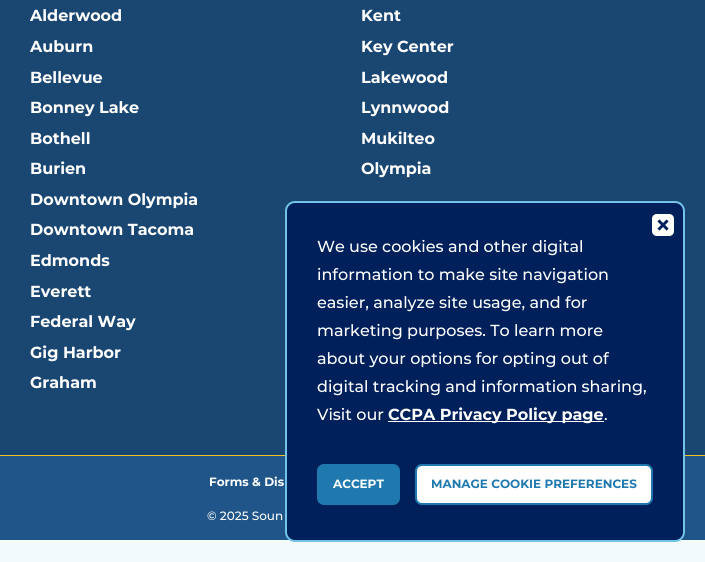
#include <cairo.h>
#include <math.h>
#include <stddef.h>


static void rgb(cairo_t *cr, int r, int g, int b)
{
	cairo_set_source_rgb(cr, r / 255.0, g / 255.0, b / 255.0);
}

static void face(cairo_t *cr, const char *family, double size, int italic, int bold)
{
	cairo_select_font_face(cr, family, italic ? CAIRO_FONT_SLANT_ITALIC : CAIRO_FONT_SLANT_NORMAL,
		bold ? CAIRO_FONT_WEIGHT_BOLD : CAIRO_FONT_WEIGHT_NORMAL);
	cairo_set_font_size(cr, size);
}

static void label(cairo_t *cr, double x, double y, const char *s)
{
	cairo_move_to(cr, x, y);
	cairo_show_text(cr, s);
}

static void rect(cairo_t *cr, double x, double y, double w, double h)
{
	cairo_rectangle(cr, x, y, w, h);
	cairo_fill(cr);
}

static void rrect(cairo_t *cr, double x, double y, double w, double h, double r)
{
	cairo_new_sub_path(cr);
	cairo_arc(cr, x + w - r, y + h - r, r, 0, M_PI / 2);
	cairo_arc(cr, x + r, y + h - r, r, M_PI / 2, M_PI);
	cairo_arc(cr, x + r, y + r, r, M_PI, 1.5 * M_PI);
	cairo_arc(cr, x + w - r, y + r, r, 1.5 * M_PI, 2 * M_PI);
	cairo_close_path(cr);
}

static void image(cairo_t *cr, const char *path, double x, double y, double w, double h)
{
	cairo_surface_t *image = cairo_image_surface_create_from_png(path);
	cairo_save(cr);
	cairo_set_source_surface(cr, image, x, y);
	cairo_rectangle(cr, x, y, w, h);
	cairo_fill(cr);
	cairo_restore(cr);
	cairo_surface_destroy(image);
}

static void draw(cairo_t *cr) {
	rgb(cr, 242, 250, 252);
	cairo_paint(cr);
	rgb(cr, 31, 85, 137);
	rect(cr, 0, 456, 705, 84);
	rgb(cr, 26, 70, 114);
	rect(cr, 0, 0, 705, 455);
	face(cr, "Montserrat", 16, 0, 1);
	rgb(cr, 255, 255, 255);
	label(cr, 30, 21, "Alderwood");
	label(cr, 361, 21, "Kent");
	label(cr, 30, 52, "Auburn");
	label(cr, 361, 52, "Key Center");
	label(cr, 30, 83, "Bellevue");
	label(cr, 361, 83, "Lakewood");
	label(cr, 30, 113, "Bonney Lake");
	label(cr, 361, 113, "Lynnwood");
	label(cr, 30, 144, "Bothell");
	label(cr, 361, 144, "Mukilteo");
	label(cr, 30, 174, "Burien");
	label(cr, 361, 174, "Olympia");
	label(cr, 30, 205, "Downtown Olympia");
	label(cr, 30, 235, "Downtown Tacoma");
	label(cr, 30, 266, "Edmonds");
	label(cr, 30, 297, "Everett");
	label(cr, 30, 327, "Federal Way");
	label(cr, 30, 358, "Gig Harbor");
	label(cr, 30, 388, "Graham");
	rgb(cr, 239, 192, 37);
	rect(cr, 0, 455, 705, 1);
	face(cr, "Montserrat", 12, 0, 1);
	rgb(cr, 255, 255, 255);
	label(cr, 209, 486, "Forms & Dis");
	face(cr, "Montserrat Medium", 12, 0, 0);
	label(cr, 207, 520, "© 2025 Soun");
	rgb(cr, 0, 32, 91);
	rrect(cr, 286, 202, 398, 339, 9);
	cairo_fill_preserve(cr);
	rgb(cr, 113, 196, 232);
	cairo_stroke(cr);
	image(cr, "image0.png", 652, 214, 22, 22);
	face(cr, "Montserrat Medium", 16, 0, 0);
	rgb(cr, 255, 255, 255);
	label(cr, 317, 252, "We use cookies and other digital");
	label(cr, 317, 280, "information to make site navigation");
	label(cr, 317, 308, "easier, analyze site usage, and for");
	label(cr, 317, 336, "marketing purposes. To learn more");
	label(cr, 317, 364, "about your options for opting out of");
	label(cr, 317, 392, "digital tracking and information sharing,");
	label(cr, 317, 420, "Visit our");
	rect(cr, 388, 421, 216, 1);
	face(cr, "Montserrat", 16, 0, 1);
	label(cr, 388, 420, "CCPA Privacy Policy page");
	face(cr, "Montserrat Medium", 16, 0, 0);
	label(cr, 604, 420, ".");
	rgb(cr, 31, 121, 175);
	rrect(cr, 318, 465, 81, 39, 6);
	cairo_fill_preserve(cr);
	cairo_stroke(cr);
	face(cr, "Montserrat", 12, 0, 1);
	rgb(cr, 255, 255, 255);
	label(cr, 333, 488, "ACCEPT");
	rrect(cr, 416, 465, 236, 39, 6);
	cairo_fill_preserve(cr);
	rgb(cr, 31, 121, 175);
	cairo_stroke(cr);
	label(cr, 431, 488, "MANAGE COOKIE PREFERENCES");
}

int main(void) {
	cairo_surface_t *surface = cairo_image_surface_create(CAIRO_FORMAT_RGB24, 705, 562);
	cairo_t *cr = cairo_create(surface);
	cairo_font_options_t *options = cairo_font_options_create();
	cairo_font_options_set_hint_metrics(options, CAIRO_HINT_METRICS_OFF);
	cairo_font_options_set_hint_style(options, CAIRO_HINT_STYLE_NONE);
	cairo_set_font_options(cr, options);
	cairo_set_miter_limit(cr, 4);
	draw(cr);
	cairo_surface_write_to_png(surface, "render.png");
	cairo_font_options_destroy(options);
	cairo_destroy(cr);
	cairo_surface_destroy(surface);
	return 0;
}
